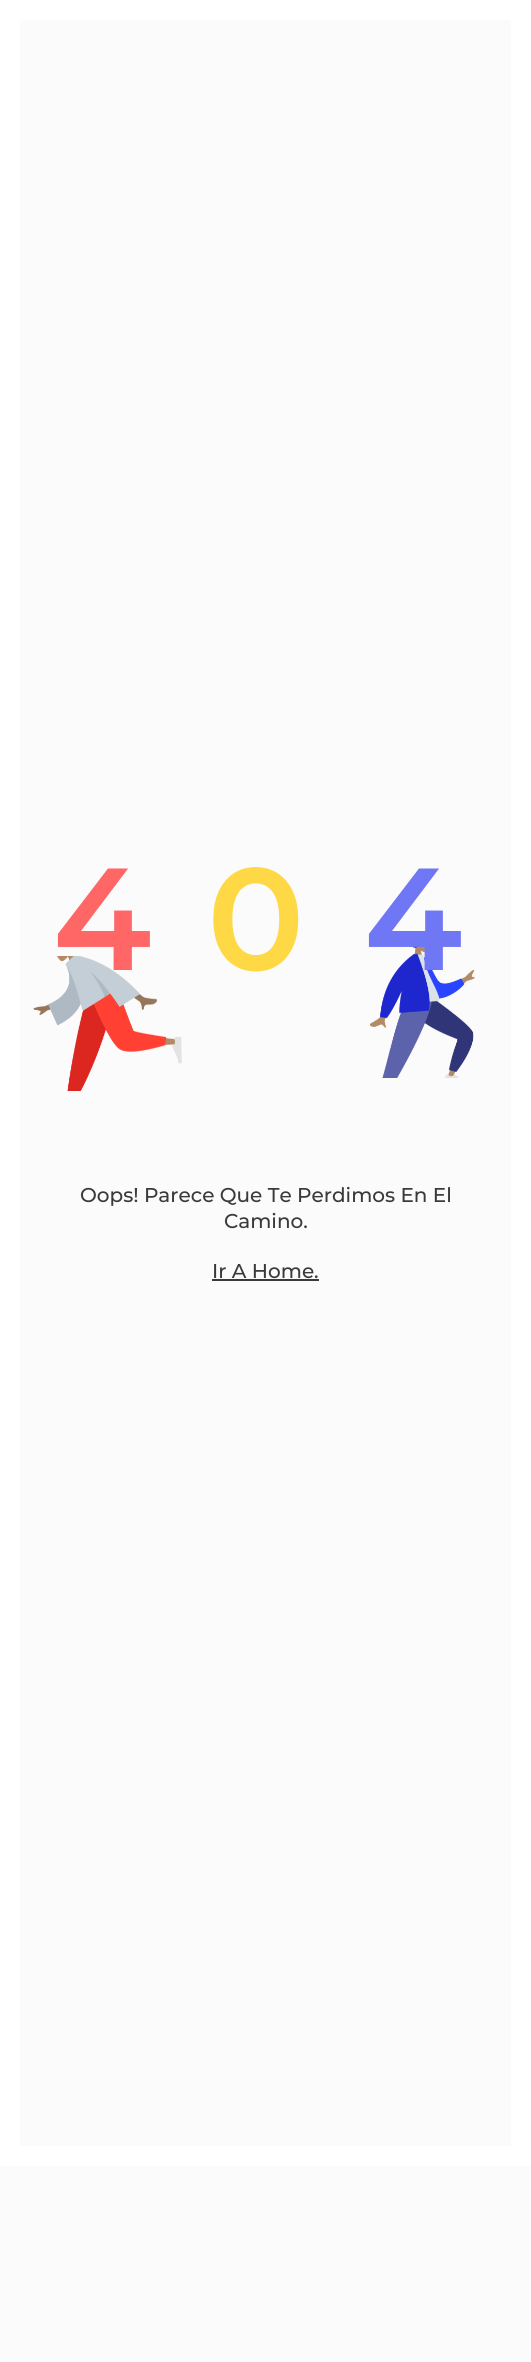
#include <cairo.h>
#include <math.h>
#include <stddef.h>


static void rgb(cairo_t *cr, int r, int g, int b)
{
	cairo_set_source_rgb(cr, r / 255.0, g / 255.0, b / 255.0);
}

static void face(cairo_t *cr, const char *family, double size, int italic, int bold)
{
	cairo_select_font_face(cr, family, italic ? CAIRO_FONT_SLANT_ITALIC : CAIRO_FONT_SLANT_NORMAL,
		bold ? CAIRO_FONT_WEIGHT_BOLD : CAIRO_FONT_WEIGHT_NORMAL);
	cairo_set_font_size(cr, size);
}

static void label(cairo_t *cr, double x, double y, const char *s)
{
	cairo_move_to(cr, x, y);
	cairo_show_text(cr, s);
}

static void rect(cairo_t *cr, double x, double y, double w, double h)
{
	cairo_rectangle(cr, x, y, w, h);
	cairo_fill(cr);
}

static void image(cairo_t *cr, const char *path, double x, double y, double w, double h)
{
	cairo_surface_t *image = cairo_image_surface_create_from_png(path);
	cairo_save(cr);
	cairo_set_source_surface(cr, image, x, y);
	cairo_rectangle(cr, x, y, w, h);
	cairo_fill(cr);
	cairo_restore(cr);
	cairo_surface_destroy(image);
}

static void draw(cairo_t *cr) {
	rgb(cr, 251, 251, 251);
	cairo_paint(cr);
	cairo_rectangle(cr, 10, 10, 511, 2146);
	rgb(cr, 255, 255, 255);
	cairo_set_line_width(cr, 20);
	cairo_stroke(cr);
	face(cr, "Montserrat SemiBold", 145, 0, 0);
	rgb(cr, 255, 102, 102);
	label(cr, 53, 970, "4");
	rgb(cr, 255, 216, 69);
	label(cr, 207, 970, "0");
	image(cr, "image1.png", 369, 943, 106, 135);
	rgb(cr, 111, 119, 244);
	label(cr, 364, 970, "4");
	image(cr, "image0.png", 33, 956, 149, 135);
	face(cr, "Montserrat Medium", 20, 0, 0);
	rgb(cr, 58, 58, 58);
	label(cr, 80, 1202, "Oops! Parece Que Te Perdimos En El");
	label(cr, 224, 1228, "Camino.");
	label(cr, 212, 1278, "Ir A Home.");
	rect(cr, 212, 1279, 107, 2);
}

int main(void) {
	cairo_surface_t *surface = cairo_image_surface_create(CAIRO_FORMAT_RGB24, 531, 2362);
	cairo_t *cr = cairo_create(surface);
	cairo_font_options_t *options = cairo_font_options_create();
	cairo_font_options_set_hint_metrics(options, CAIRO_HINT_METRICS_OFF);
	cairo_font_options_set_hint_style(options, CAIRO_HINT_STYLE_NONE);
	cairo_set_font_options(cr, options);
	cairo_set_miter_limit(cr, 4);
	draw(cr);
	cairo_surface_write_to_png(surface, "render.png");
	cairo_font_options_destroy(options);
	cairo_destroy(cr);
	cairo_surface_destroy(surface);
	return 0;
}
